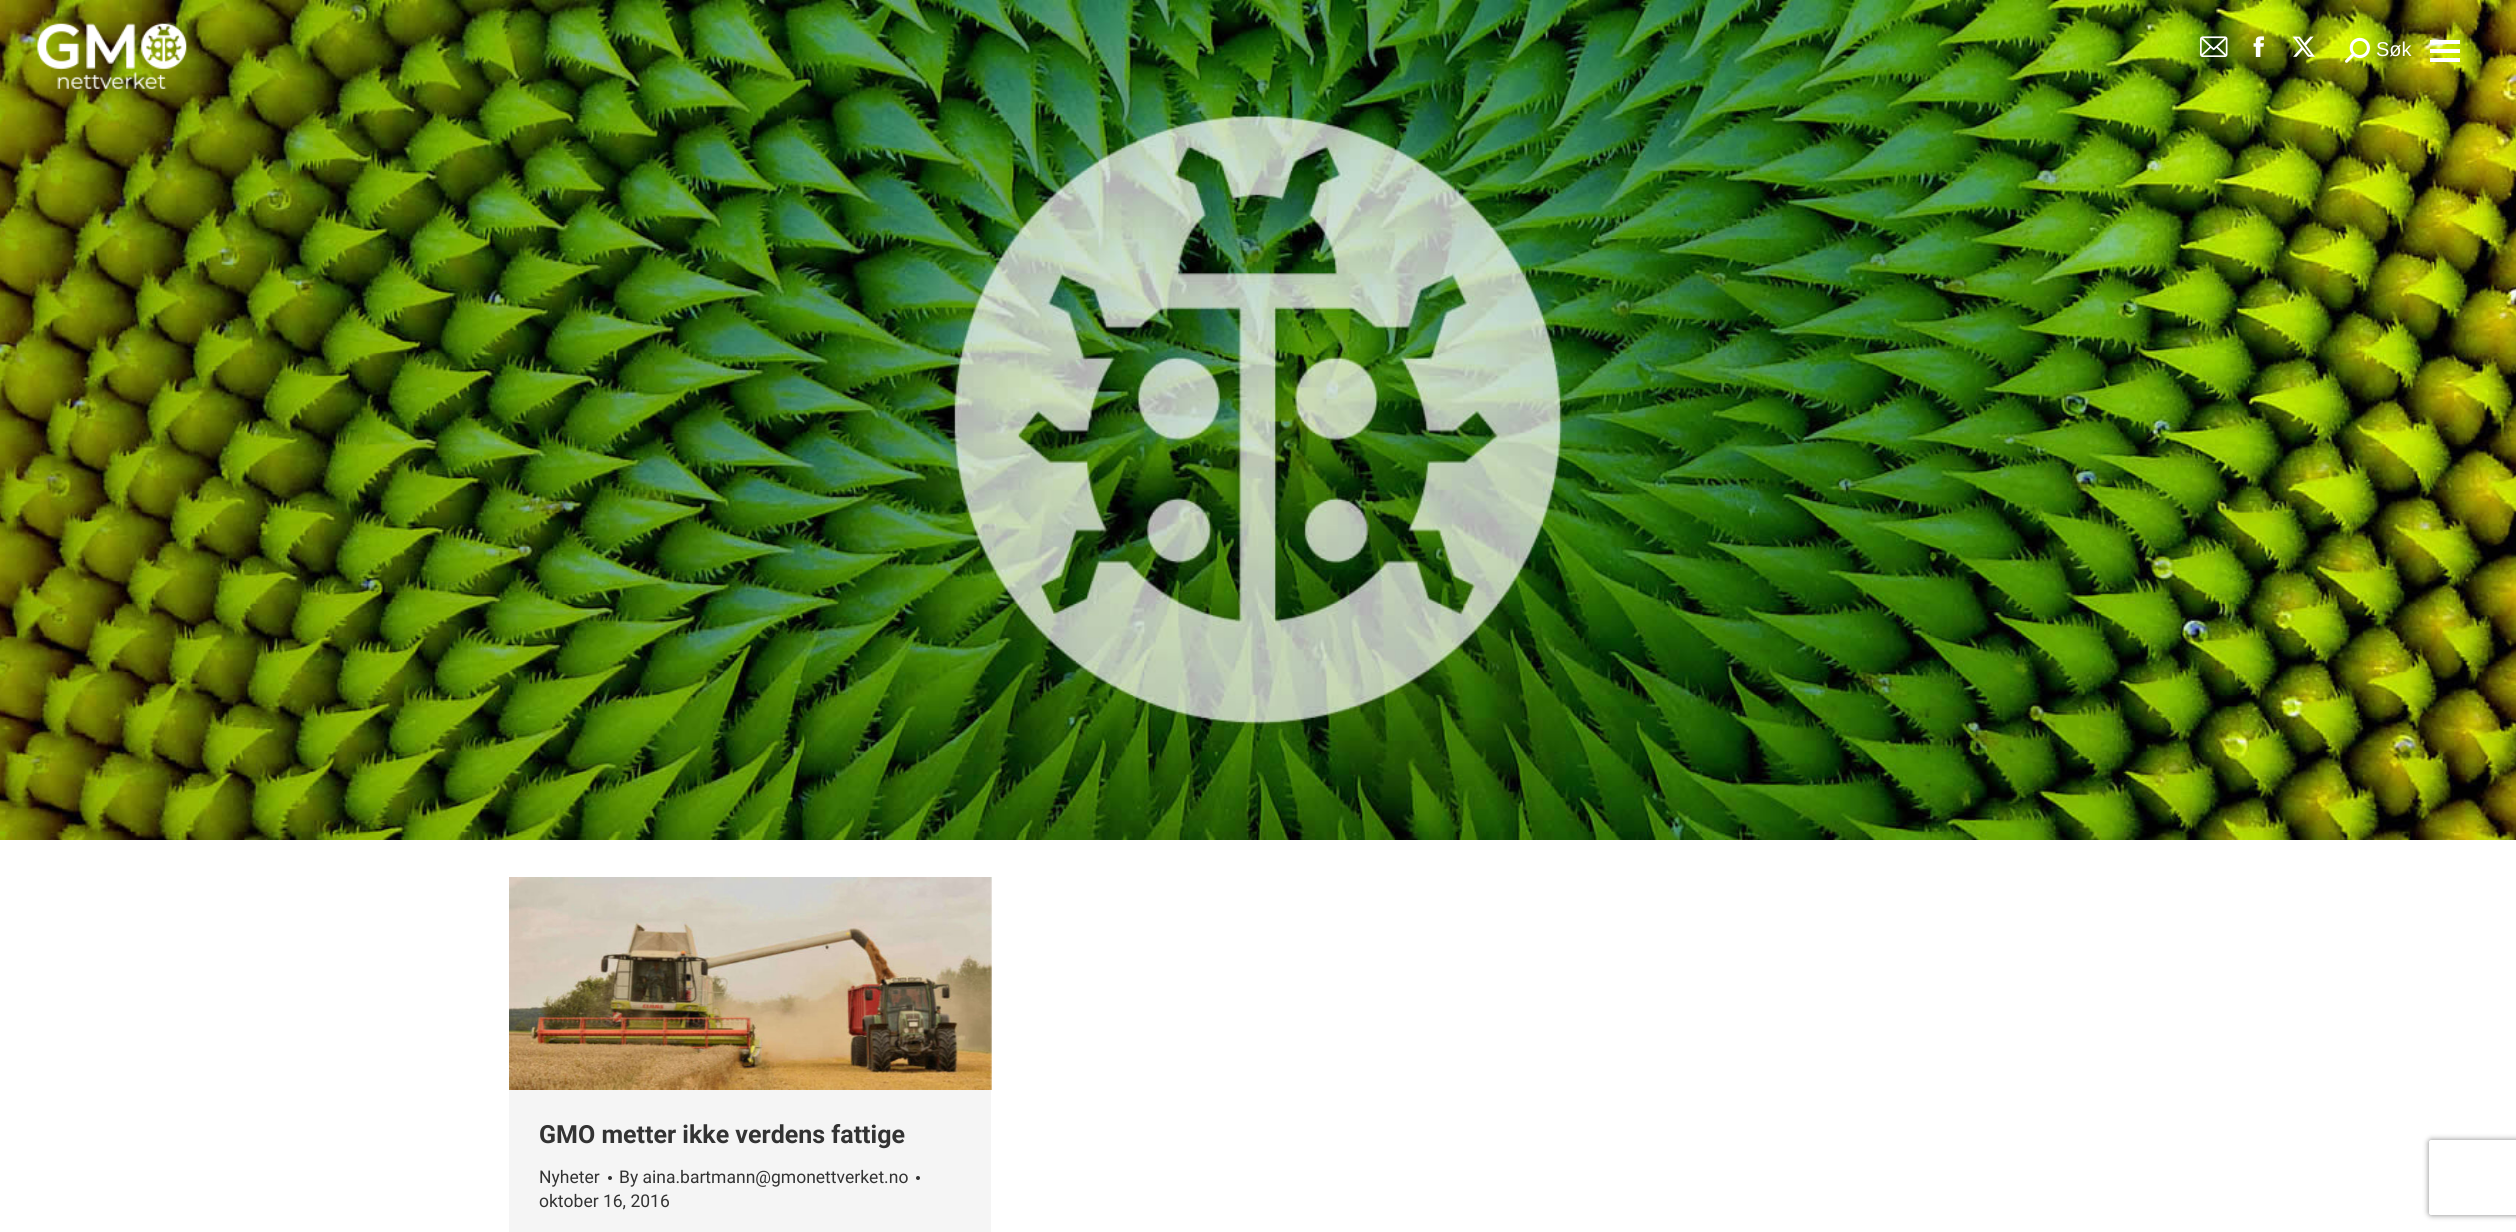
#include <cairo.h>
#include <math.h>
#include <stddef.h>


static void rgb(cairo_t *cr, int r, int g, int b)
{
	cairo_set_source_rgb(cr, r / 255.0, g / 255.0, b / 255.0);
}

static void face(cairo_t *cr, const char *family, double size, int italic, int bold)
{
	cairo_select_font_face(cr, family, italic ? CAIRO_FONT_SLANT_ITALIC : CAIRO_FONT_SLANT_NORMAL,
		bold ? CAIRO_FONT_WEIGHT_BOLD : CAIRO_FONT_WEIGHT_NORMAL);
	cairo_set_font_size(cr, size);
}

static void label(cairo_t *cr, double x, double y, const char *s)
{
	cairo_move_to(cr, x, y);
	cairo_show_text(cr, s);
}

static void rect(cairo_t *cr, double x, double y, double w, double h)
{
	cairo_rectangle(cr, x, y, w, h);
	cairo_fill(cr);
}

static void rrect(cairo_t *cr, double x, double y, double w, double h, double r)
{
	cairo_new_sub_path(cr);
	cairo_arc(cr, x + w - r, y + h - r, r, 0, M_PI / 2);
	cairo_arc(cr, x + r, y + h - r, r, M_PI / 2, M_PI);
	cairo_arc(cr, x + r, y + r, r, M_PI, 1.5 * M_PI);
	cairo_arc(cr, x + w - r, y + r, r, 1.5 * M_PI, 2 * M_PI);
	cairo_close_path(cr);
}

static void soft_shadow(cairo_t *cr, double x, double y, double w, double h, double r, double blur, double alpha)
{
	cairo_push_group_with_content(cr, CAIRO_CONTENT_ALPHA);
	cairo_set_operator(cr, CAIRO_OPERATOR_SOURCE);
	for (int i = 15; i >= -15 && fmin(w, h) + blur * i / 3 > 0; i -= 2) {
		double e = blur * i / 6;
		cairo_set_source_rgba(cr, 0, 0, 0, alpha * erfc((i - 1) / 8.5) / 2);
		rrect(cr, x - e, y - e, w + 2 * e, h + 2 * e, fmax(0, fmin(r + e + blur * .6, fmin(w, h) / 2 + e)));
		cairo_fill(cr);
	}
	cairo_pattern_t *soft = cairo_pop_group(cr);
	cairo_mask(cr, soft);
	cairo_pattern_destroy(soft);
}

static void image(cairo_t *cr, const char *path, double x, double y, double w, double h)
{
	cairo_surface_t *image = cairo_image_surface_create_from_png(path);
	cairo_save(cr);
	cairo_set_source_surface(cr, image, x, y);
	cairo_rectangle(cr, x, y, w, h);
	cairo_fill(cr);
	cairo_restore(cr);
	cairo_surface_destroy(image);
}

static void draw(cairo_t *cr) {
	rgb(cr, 255, 255, 255);
	cairo_paint(cr);
	image(cr, "image0.png", 0, 0, 2516, 840);
	image(cr, "image1.png", 37, 23, 150, 66);
	image(cr, "image2.png", 2200, 36, 28, 21);
	image(cr, "image3.png", 2253, 36, 11, 21);
	image(cr, "image4.png", 2292, 36, 23, 21);
	image(cr, "image5.png", 2345, 37, 25, 26);
	face(cr, "Liberation Sans", 20, 0, 0);
	rgb(cr, 255, 255, 255);
	label(cr, 2376, 56, "Søk");
	rect(cr, 2430, 40, 30, 4);
	rect(cr, 2430, 49, 30, 4);
	rect(cr, 2430, 58, 30, 4);
	rgb(cr, 245, 245, 245);
	rect(cr, 509, 878, 482, 354);
	image(cr, "image6.png", 509, 877, 483, 213);
	face(cr, "Roboto", 25, 0, 1);
	rgb(cr, 51, 51, 51);
	label(cr, 539, 1143, "GMO metter ikke verdens fattige");
	face(cr, "Roboto", 17.5, 0, 0);
	label(cr, 539, 1183, "Nyheter");
	cairo_new_path(cr);
	cairo_arc(cr, 610, 1178, 2, 0, 2 * M_PI);
	cairo_fill(cr);
	label(cr, 619, 1183, "By aina.bartmann@gmonettverket.no");
	cairo_new_path(cr);
	cairo_arc(cr, 918, 1178, 2, 0, 2 * M_PI);
	cairo_fill(cr);
	label(cr, 539, 1207, "oktober 16, 2016");
	cairo_save(cr);
	cairo_set_fill_rule(cr, CAIRO_FILL_RULE_EVEN_ODD);
	cairo_new_path(cr);
	cairo_move_to(cr, 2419, 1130);
	cairo_line_to(cr, 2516, 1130);
	cairo_line_to(cr, 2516, 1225);
	cairo_line_to(cr, 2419, 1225);
	cairo_close_path(cr);
	cairo_move_to(cr, 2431.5, 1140);
	cairo_line_to(cr, 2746.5, 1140);
	cairo_curve_to(cr, 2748, 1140, 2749, 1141, 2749, 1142.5);
	cairo_line_to(cr, 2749, 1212.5);
	cairo_curve_to(cr, 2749, 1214, 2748, 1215, 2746.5, 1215);
	cairo_line_to(cr, 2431.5, 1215);
	cairo_curve_to(cr, 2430, 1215, 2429, 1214, 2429, 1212.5);
	cairo_line_to(cr, 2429, 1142.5);
	cairo_curve_to(cr, 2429, 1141, 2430, 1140, 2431.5, 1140);
	cairo_close_path(cr);
	cairo_clip(cr);
	rgb(cr, 128, 128, 128);
	soft_shadow(cr, 2429, 1140, 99, 75, 2.5, 3, 1);
	cairo_restore(cr);
}

int main(void) {
	cairo_surface_t *surface = cairo_image_surface_create(CAIRO_FORMAT_RGB24, 2516, 1232);
	cairo_t *cr = cairo_create(surface);
	cairo_font_options_t *options = cairo_font_options_create();
	cairo_font_options_set_hint_metrics(options, CAIRO_HINT_METRICS_OFF);
	cairo_font_options_set_hint_style(options, CAIRO_HINT_STYLE_NONE);
	cairo_set_font_options(cr, options);
	cairo_set_miter_limit(cr, 4);
	draw(cr);
	cairo_surface_write_to_png(surface, "render.png");
	cairo_font_options_destroy(options);
	cairo_destroy(cr);
	cairo_surface_destroy(surface);
	return 0;
}
